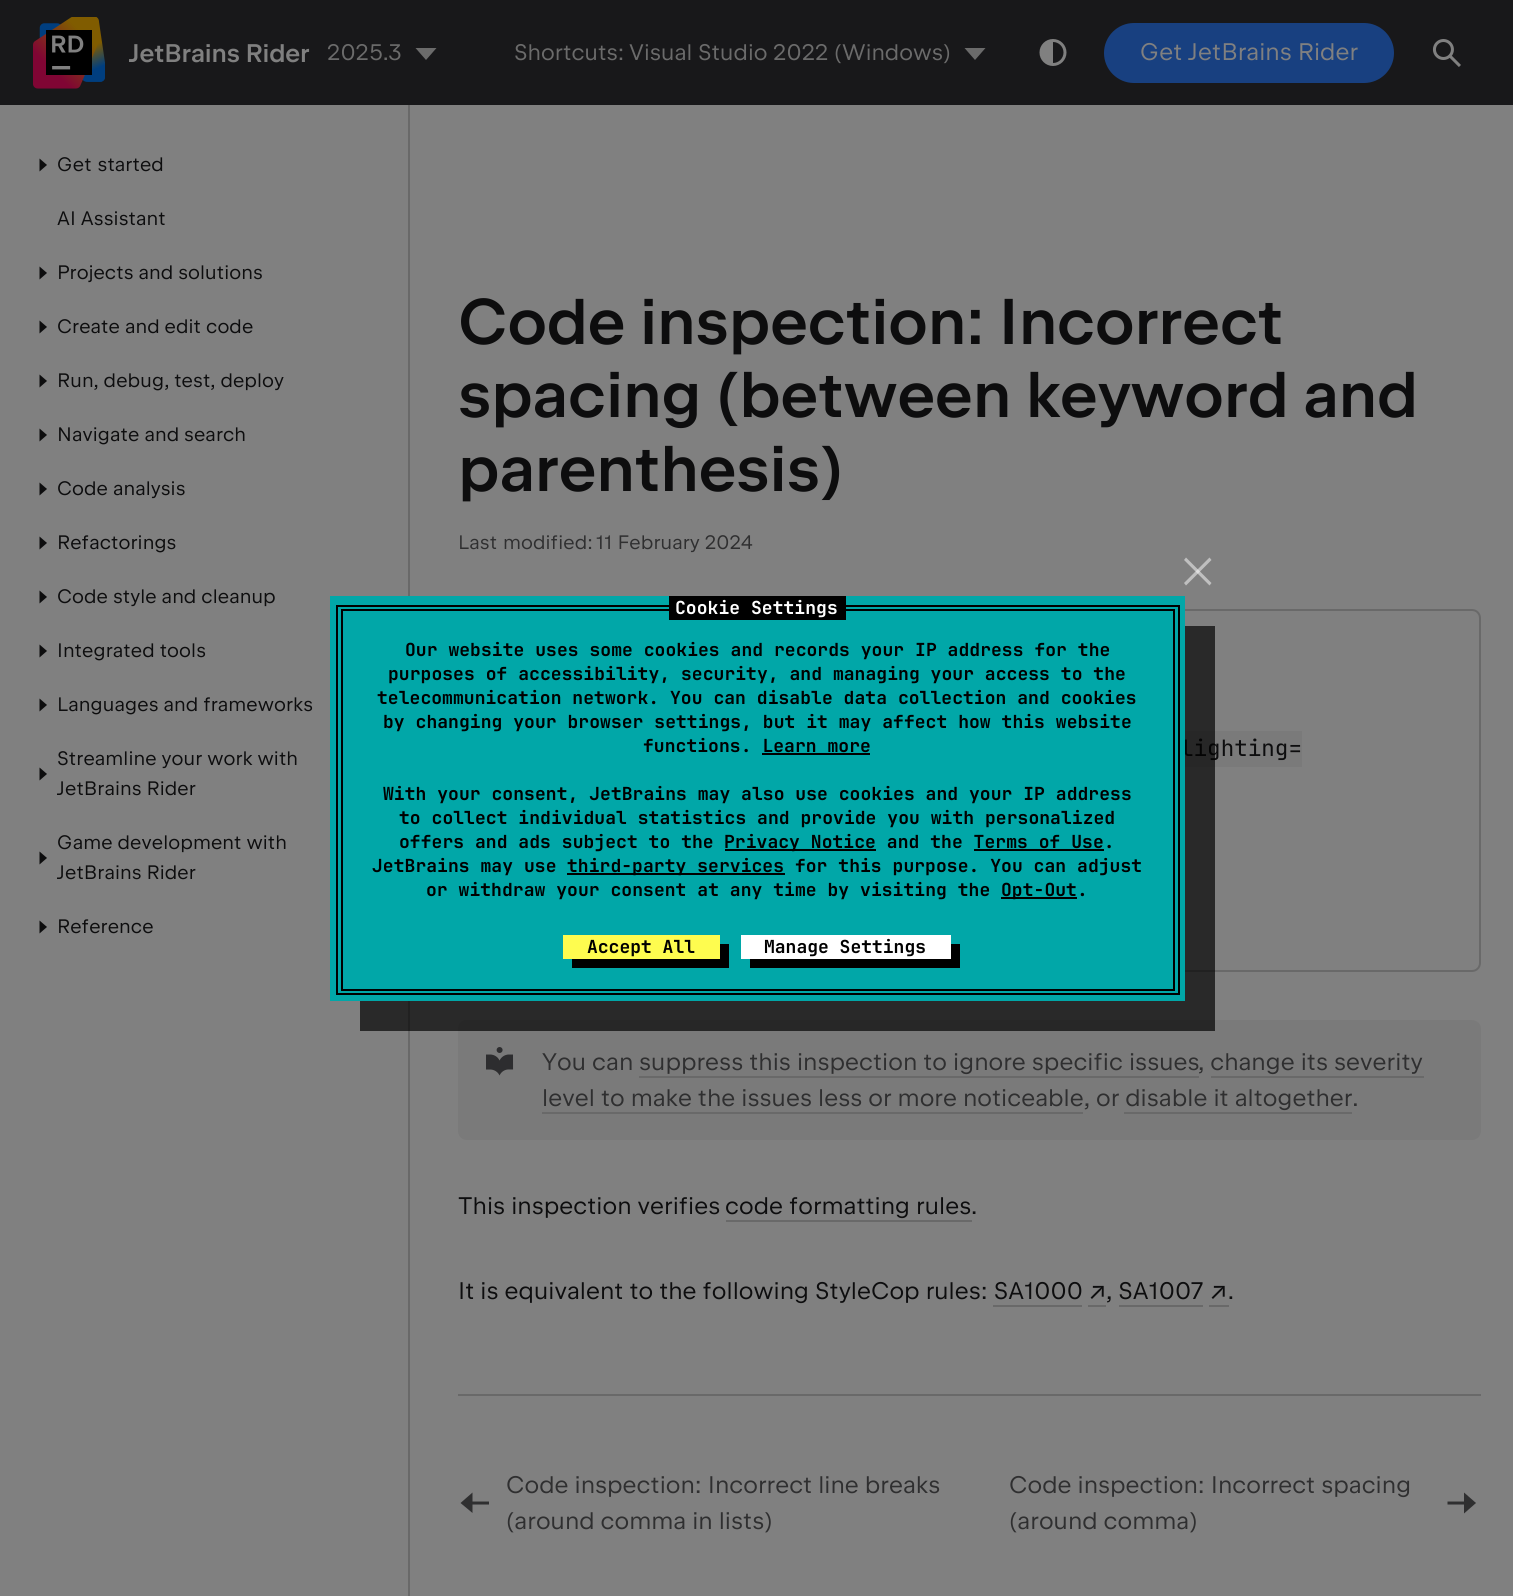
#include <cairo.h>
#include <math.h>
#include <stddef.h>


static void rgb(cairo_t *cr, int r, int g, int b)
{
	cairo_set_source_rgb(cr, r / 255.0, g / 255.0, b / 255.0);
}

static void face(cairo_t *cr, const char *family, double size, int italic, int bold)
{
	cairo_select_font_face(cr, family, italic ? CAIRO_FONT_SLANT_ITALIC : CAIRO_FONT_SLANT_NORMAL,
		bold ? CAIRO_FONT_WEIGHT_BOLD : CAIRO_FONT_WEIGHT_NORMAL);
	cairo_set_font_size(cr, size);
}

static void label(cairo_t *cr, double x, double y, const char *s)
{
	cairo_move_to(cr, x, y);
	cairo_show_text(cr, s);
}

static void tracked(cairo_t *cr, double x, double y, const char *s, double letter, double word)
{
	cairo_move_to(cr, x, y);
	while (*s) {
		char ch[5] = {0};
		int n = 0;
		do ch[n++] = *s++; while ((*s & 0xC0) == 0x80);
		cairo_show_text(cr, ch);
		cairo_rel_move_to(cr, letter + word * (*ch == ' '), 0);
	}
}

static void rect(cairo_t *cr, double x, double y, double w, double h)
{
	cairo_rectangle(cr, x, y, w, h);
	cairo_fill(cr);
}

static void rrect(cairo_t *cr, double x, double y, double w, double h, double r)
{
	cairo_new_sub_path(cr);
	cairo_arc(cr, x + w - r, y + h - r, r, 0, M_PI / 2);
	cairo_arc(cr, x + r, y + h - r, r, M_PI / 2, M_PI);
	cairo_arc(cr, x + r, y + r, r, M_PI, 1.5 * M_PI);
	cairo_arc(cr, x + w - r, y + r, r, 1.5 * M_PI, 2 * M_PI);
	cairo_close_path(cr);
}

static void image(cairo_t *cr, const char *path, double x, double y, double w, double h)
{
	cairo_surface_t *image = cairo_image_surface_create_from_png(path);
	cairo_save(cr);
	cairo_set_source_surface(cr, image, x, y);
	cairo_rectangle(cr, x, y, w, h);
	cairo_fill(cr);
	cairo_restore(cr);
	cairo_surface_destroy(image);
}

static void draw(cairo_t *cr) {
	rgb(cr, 128, 128, 128);
	cairo_paint(cr);
	rgb(cr, 24, 24, 26);
	rect(cr, 0, 0, 1513, 105);
	image(cr, "image0.png", 33, 17, 72, 72);
	face(cr, "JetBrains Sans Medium", 25.5, 0, 0);
	rgb(cr, 128, 128, 128);
	tracked(cr, 129, 62, "JetBrains Rider", -0.1, 0);
	face(cr, "JetBrains Sans", 22.5, 0, 0);
	rgb(cr, 107, 107, 107);
	tracked(cr, 327, 60, "2025.3", 0.05, 0);
	cairo_new_path(cr);
	cairo_move_to(cr, 426, 60);
	cairo_line_to(cr, 415.5, 48);
	cairo_line_to(cr, 436.5, 48);
	cairo_close_path(cr);
	cairo_fill(cr);
	tracked(cr, 514, 60, "Shortcuts:", 0.05, 0);
	tracked(cr, 629, 60, "Visual Studio 2022 (Windows)", 0.05, 0);
	cairo_new_path(cr);
	cairo_move_to(cr, 975, 60);
	cairo_line_to(cr, 964.5, 48);
	cairo_line_to(cr, 985.5, 48);
	cairo_close_path(cr);
	cairo_fill(cr);
	image(cr, "image1.png", 1039, 39, 28, 27);
	rgb(cr, 24, 64, 128);
	rrect(cr, 1104, 23, 290, 60, 30);
	cairo_fill(cr);
	face(cr, "JetBrains Sans", 24, 0, 0);
	rgb(cr, 128, 128, 128);
	tracked(cr, 1140, 60, "Get JetBrains Rider", 0.05, 0);
	image(cr, "image2.png", 1432, 39, 29, 28);
	rgb(cr, 105, 105, 105);
	rect(cr, 408, 105, 2, 1491);
	rgb(cr, 13, 13, 14);
	cairo_new_path(cr);
	cairo_move_to(cr, 47, 165);
	cairo_line_to(cr, 39.5, 171.5);
	cairo_line_to(cr, 39.5, 158.5);
	cairo_close_path(cr);
	cairo_fill(cr);
	face(cr, "JetBrains Sans", 19.5, 0, 0);
	tracked(cr, 57, 171, "Get started", 0.1, 1);
	tracked(cr, 57, 225, "AI Assistant", 0.1, 0);
	cairo_new_path(cr);
	cairo_move_to(cr, 47, 273);
	cairo_line_to(cr, 39.5, 279.5);
	cairo_line_to(cr, 39.5, 266.5);
	cairo_close_path(cr);
	cairo_fill(cr);
	tracked(cr, 57, 279, "Projects and solutions", 0.1, 0);
	cairo_new_path(cr);
	cairo_move_to(cr, 47, 327);
	cairo_line_to(cr, 39.5, 333.5);
	cairo_line_to(cr, 39.5, 320.5);
	cairo_close_path(cr);
	cairo_fill(cr);
	tracked(cr, 57, 333, "Create and edit code", 0.1, 0);
	cairo_new_path(cr);
	cairo_move_to(cr, 47, 381);
	cairo_line_to(cr, 39.5, 387.5);
	cairo_line_to(cr, 39.5, 374.5);
	cairo_close_path(cr);
	cairo_fill(cr);
	tracked(cr, 57, 387, "Run, debug, test, deploy", 0.1, 0);
	cairo_new_path(cr);
	cairo_move_to(cr, 47, 435);
	cairo_line_to(cr, 39.5, 441.5);
	cairo_line_to(cr, 39.5, 428.5);
	cairo_close_path(cr);
	cairo_fill(cr);
	tracked(cr, 57, 441, "Navigate and search", 0.1, 0);
	cairo_new_path(cr);
	cairo_move_to(cr, 47, 489);
	cairo_line_to(cr, 39.5, 495.5);
	cairo_line_to(cr, 39.5, 482.5);
	cairo_close_path(cr);
	cairo_fill(cr);
	tracked(cr, 57, 495, "Code analysis", 0.1, 0);
	cairo_new_path(cr);
	cairo_move_to(cr, 47, 543);
	cairo_line_to(cr, 39.5, 549.5);
	cairo_line_to(cr, 39.5, 536.5);
	cairo_close_path(cr);
	cairo_fill(cr);
	tracked(cr, 57, 549, "Refactorings", 0.1, 0);
	cairo_new_path(cr);
	cairo_move_to(cr, 47, 597);
	cairo_line_to(cr, 39.5, 603.5);
	cairo_line_to(cr, 39.5, 590.5);
	cairo_close_path(cr);
	cairo_fill(cr);
	tracked(cr, 57, 603, "Code style and cleanup", 0.1, 0);
	cairo_new_path(cr);
	cairo_move_to(cr, 47, 651);
	cairo_line_to(cr, 39.5, 657.5);
	cairo_line_to(cr, 39.5, 644.5);
	cairo_close_path(cr);
	cairo_fill(cr);
	tracked(cr, 57, 657, "Integrated tools", 0.1, 0);
	cairo_new_path(cr);
	cairo_move_to(cr, 47, 705);
	cairo_line_to(cr, 39.5, 711.5);
	cairo_line_to(cr, 39.5, 698.5);
	cairo_close_path(cr);
	cairo_fill(cr);
	tracked(cr, 57, 711, "Languages and frameworks", 0.1, 0);
	tracked(cr, 57, 765, "Streamline your work with", 0.1, 0);
	cairo_new_path(cr);
	cairo_move_to(cr, 47, 774);
	cairo_line_to(cr, 39.5, 780.5);
	cairo_line_to(cr, 39.5, 767.5);
	cairo_close_path(cr);
	cairo_fill(cr);
	tracked(cr, 57, 795, "JetBrains Rider", 0.1, 0);
	tracked(cr, 57, 849, "Game development with", 0.1, 0);
	cairo_new_path(cr);
	cairo_move_to(cr, 47, 858);
	cairo_line_to(cr, 39.5, 864.5);
	cairo_line_to(cr, 39.5, 851.5);
	cairo_close_path(cr);
	cairo_fill(cr);
	tracked(cr, 57, 879, "JetBrains Rider", 0.1, 0);
	cairo_new_path(cr);
	cairo_move_to(cr, 47, 927);
	cairo_line_to(cr, 39.5, 933.5);
	cairo_line_to(cr, 39.5, 920.5);
	cairo_close_path(cr);
	cairo_fill(cr);
	tracked(cr, 57, 933, "Reference", 0.1, 0);
	face(cr, "JetBrains Sans Medium", 64.5, 0, 0);
	tracked(cr, 458, 344, "Code inspection: Incorrect", -0.05, 0);
	tracked(cr, 458, 417, "spacing (between keyword and", -0.05, 0);
	tracked(cr, 458, 491, "parenthesis)", -0.05, 0);
	face(cr, "JetBrains Sans", 19.5, 0, 0);
	rgb(cr, 47, 47, 48);
	tracked(cr, 458, 549, "Last modified:", 0.1, 1);
	tracked(cr, 596, 549, "11 February 2024", 0.1, 0);
	rrect(cr, 459, 610, 1021, 361, 8);
	rgb(cr, 105, 105, 105);
	cairo_stroke(cr);
	rgb(cr, 122, 122, 122);
	rect(cr, 1185, 731, 117, 36);
	face(cr, "JetBrains Mono", 22.5, 0, 0);
	rgb(cr, 13, 13, 14);
	tracked(cr, 1180, 756, "lighting=", 0.05, 0);
	rgb(cr, 122, 122, 122);
	rrect(cr, 458, 1020, 1023, 120, 9);
	cairo_fill(cr);
	image(cr, "image3.png", 486, 1047, 28, 29);
	face(cr, "JetBrains Sans", 24, 0, 0);
	rgb(cr, 47, 47, 48);
	tracked(cr, 542, 1070, "You can", 0.05, 0);
	tracked(cr, 639, 1070, "suppress this inspection to ignore specific issues", 0.05, 0);
	rgb(cr, 105, 105, 105);
	rect(cr, 639, 1076, 560, 2);
	rgb(cr, 47, 47, 48);
	tracked(cr, 1198, 1070, ", change its severity", 0.05, 0);
	tracked(cr, 542, 1106, "level to make the issues less or more noticeable, or disable it altogether.", 0.05, 0);
	rgb(cr, 105, 105, 105);
	rect(cr, 1211, 1076, 213, 2);
	rect(cr, 542, 1112, 541, 2);
	rect(cr, 1124, 1112, 228, 2);
	rgb(cr, 13, 13, 14);
	tracked(cr, 458, 1214, "This inspection verifies", 0.05, 0);
	tracked(cr, 725, 1214, "code formatting rules.", 0.05, 0);
	rgb(cr, 105, 105, 105);
	rect(cr, 726, 1220, 246, 2);
	rgb(cr, 13, 13, 14);
	tracked(cr, 458, 1299, "It is equivalent to the following StyleCop rules: SA1000", 0.05, 0);
	face(cr, "Inter", 24, 0, 0);
	tracked(cr, 1088, 1299, "↗", 0.05, 0);
	rgb(cr, 105, 105, 105);
	rect(cr, 993, 1305, 89, 2);
	rect(cr, 1088, 1305, 18, 2);
	face(cr, "JetBrains Sans", 24, 0, 0);
	rgb(cr, 13, 13, 14);
	tracked(cr, 1106, 1299, ", SA1007", 0.05, 0);
	face(cr, "Inter", 24, 0, 0);
	tracked(cr, 1209, 1299, "↗", 0.05, 0);
	rgb(cr, 105, 105, 105);
	rect(cr, 1119, 1305, 84, 2);
	rect(cr, 1209, 1305, 20, 2);
	face(cr, "JetBrains Sans", 24, 0, 0);
	rgb(cr, 13, 13, 14);
	tracked(cr, 1228, 1299, ".", 0.05, 0);
	rgb(cr, 105, 105, 105);
	rect(cr, 458, 1394, 1023, 2);
	rgb(cr, 47, 47, 48);
	tracked(cr, 506, 1493, "Code inspection: Incorrect line breaks", 0.05, 0);
	cairo_new_path(cr);
	cairo_move_to(cr, 460.5, 1503);
	cairo_line_to(cr, 472.5, 1492.5);
	cairo_line_to(cr, 472.5, 1501.5);
	cairo_line_to(cr, 489, 1501.5);
	cairo_line_to(cr, 489, 1504.5);
	cairo_line_to(cr, 472.5, 1504.5);
	cairo_line_to(cr, 472.5, 1513);
	cairo_close_path(cr);
	cairo_fill(cr);
	tracked(cr, 506, 1529, "(around comma in lists)", 0.05, 0);
	tracked(cr, 1009, 1493, "Code inspection: Incorrect spacing", 0.05, 0);
	cairo_new_path(cr);
	cairo_move_to(cr, 1476, 1503);
	cairo_line_to(cr, 1464, 1492.5);
	cairo_line_to(cr, 1464, 1501.5);
	cairo_line_to(cr, 1447.5, 1501.5);
	cairo_line_to(cr, 1447.5, 1504.5);
	cairo_line_to(cr, 1464, 1504.5);
	cairo_line_to(cr, 1464, 1513.5);
	cairo_close_path(cr);
	cairo_fill(cr);
	tracked(cr, 1009, 1529, "(around comma)", 0.05, 0);
	cairo_set_source_rgba(cr, 0, 0, 0, 0.68);
	cairo_new_path(cr);
	cairo_move_to(cr, 360, 1000);
	cairo_line_to(cr, 360, 1031);
	cairo_line_to(cr, 1215, 1031);
	cairo_line_to(cr, 1215, 626);
	cairo_line_to(cr, 1185, 626);
	cairo_line_to(cr, 1185, 1000);
	cairo_close_path(cr);
	cairo_fill(cr);
	rgb(cr, 1, 167, 168);
	rect(cr, 330, 596, 855, 405);
	rgb(cr, 191, 191, 191);
	cairo_new_path(cr);
	cairo_move_to(cr, 1184, 583);
	cairo_line_to(cr, 1209.5, 557.5);
	cairo_line_to(cr, 1211.5, 560);
	cairo_line_to(cr, 1186, 585.5);
	cairo_close_path(cr);
	cairo_fill(cr);
	cairo_set_source_rgba(cr, 1, 1, 1, 0.5);
	cairo_new_path(cr);
	cairo_move_to(cr, 1186, 557.5);
	cairo_line_to(cr, 1211.5, 583);
	cairo_line_to(cr, 1209.5, 585.5);
	cairo_line_to(cr, 1184, 560);
	cairo_close_path(cr);
	cairo_fill(cr);
	rgb(cr, 0, 0, 0);
	rect(cr, 341, 609, 834, 2);
	rect(cr, 1173, 609, 2, 381);
	rect(cr, 341, 609, 2, 326);
	rect(cr, 336, 605, 843, 2);
	rect(cr, 669, 596, 177, 24);
	face(cr, "JetBrains Mono", 18, 0, 1);
	rgb(cr, 255, 255, 255);
	tracked(cr, 675, 614, "Cookie Settings", 0.05, 0);
	rgb(cr, 0, 0, 0);
	rect(cr, 1178, 605, 2, 390);
	rect(cr, 336, 605, 2, 328);
	tracked(cr, 405, 656, "Our website uses some cookies and records your IP address for the", 0.05, 0);
	tracked(cr, 388, 680, "purposes of accessibility, security, and managing your access to the", 0.05, 0);
	tracked(cr, 377, 704, "telecommunication network. You can disable data collection and cookies", 0.05, 0);
	tracked(cr, 383, 728, "by changing your browser settings, but it may affect how this website", 0.05, 0);
	tracked(cr, 643, 752, "functions. Learn more", 0.05, 0);
	rect(cr, 762, 753, 108, 2);
	tracked(cr, 383, 800, "With your consent, JetBrains may also use cookies and your IP address", 0.05, 0);
	tracked(cr, 399, 824, "to collect individual statistics and provide you with personalized", 0.05, 0);
	tracked(cr, 399, 848, "offers and ads subject to the", 0.05, 0);
	rect(cr, 725, 849, 151, 2);
	tracked(cr, 724, 848, "Privacy Notice and the Terms of Use.", 0.05, 0);
	rect(cr, 974, 849, 130, 2);
	tracked(cr, 372, 872, "JetBrains may use", 0.05, 0);
	rect(cr, 567, 873, 218, 2);
	tracked(cr, 567, 872, "third-party services for this purpose. You can adjust", 0.05, 0);
	tracked(cr, 426, 896, "or withdraw your consent at any time by visiting the", 0.05, 0);
	rect(cr, 1001, 897, 76, 2);
	tracked(cr, 1001, 896, "Opt-Out.", 0.05, 0);
	rect(cr, 341, 989, 834, 2);
	rect(cr, 341, 935, 2, 55);
	rect(cr, 336, 993, 843, 2);
	rect(cr, 336, 933, 2, 62);
	cairo_new_path(cr);
	cairo_move_to(cr, 572, 958);
	cairo_line_to(cr, 572, 968);
	cairo_line_to(cr, 729, 968);
	cairo_line_to(cr, 729, 944);
	cairo_line_to(cr, 720, 944);
	cairo_line_to(cr, 720, 958);
	cairo_close_path(cr);
	cairo_fill(cr);
	rgb(cr, 254, 252, 79);
	rect(cr, 563, 935, 157, 24);
	rgb(cr, 0, 0, 0);
	label(cr, 587, 953, "Accept All");
	cairo_new_path(cr);
	cairo_move_to(cr, 750, 958);
	cairo_line_to(cr, 750, 968);
	cairo_line_to(cr, 960, 968);
	cairo_line_to(cr, 960, 944);
	cairo_line_to(cr, 951, 944);
	cairo_line_to(cr, 951, 958);
	cairo_close_path(cr);
	cairo_fill(cr);
	rgb(cr, 255, 255, 255);
	rect(cr, 741, 935, 210, 24);
	rgb(cr, 0, 0, 0);
	label(cr, 764, 953, "Manage Settings");
}

int main(void) {
	cairo_surface_t *surface = cairo_image_surface_create(CAIRO_FORMAT_RGB24, 1513, 1596);
	cairo_t *cr = cairo_create(surface);
	cairo_font_options_t *options = cairo_font_options_create();
	cairo_font_options_set_hint_metrics(options, CAIRO_HINT_METRICS_OFF);
	cairo_font_options_set_hint_style(options, CAIRO_HINT_STYLE_NONE);
	cairo_set_font_options(cr, options);
	cairo_set_miter_limit(cr, 4);
	draw(cr);
	cairo_surface_write_to_png(surface, "render.png");
	cairo_font_options_destroy(options);
	cairo_destroy(cr);
	cairo_surface_destroy(surface);
	return 0;
}
